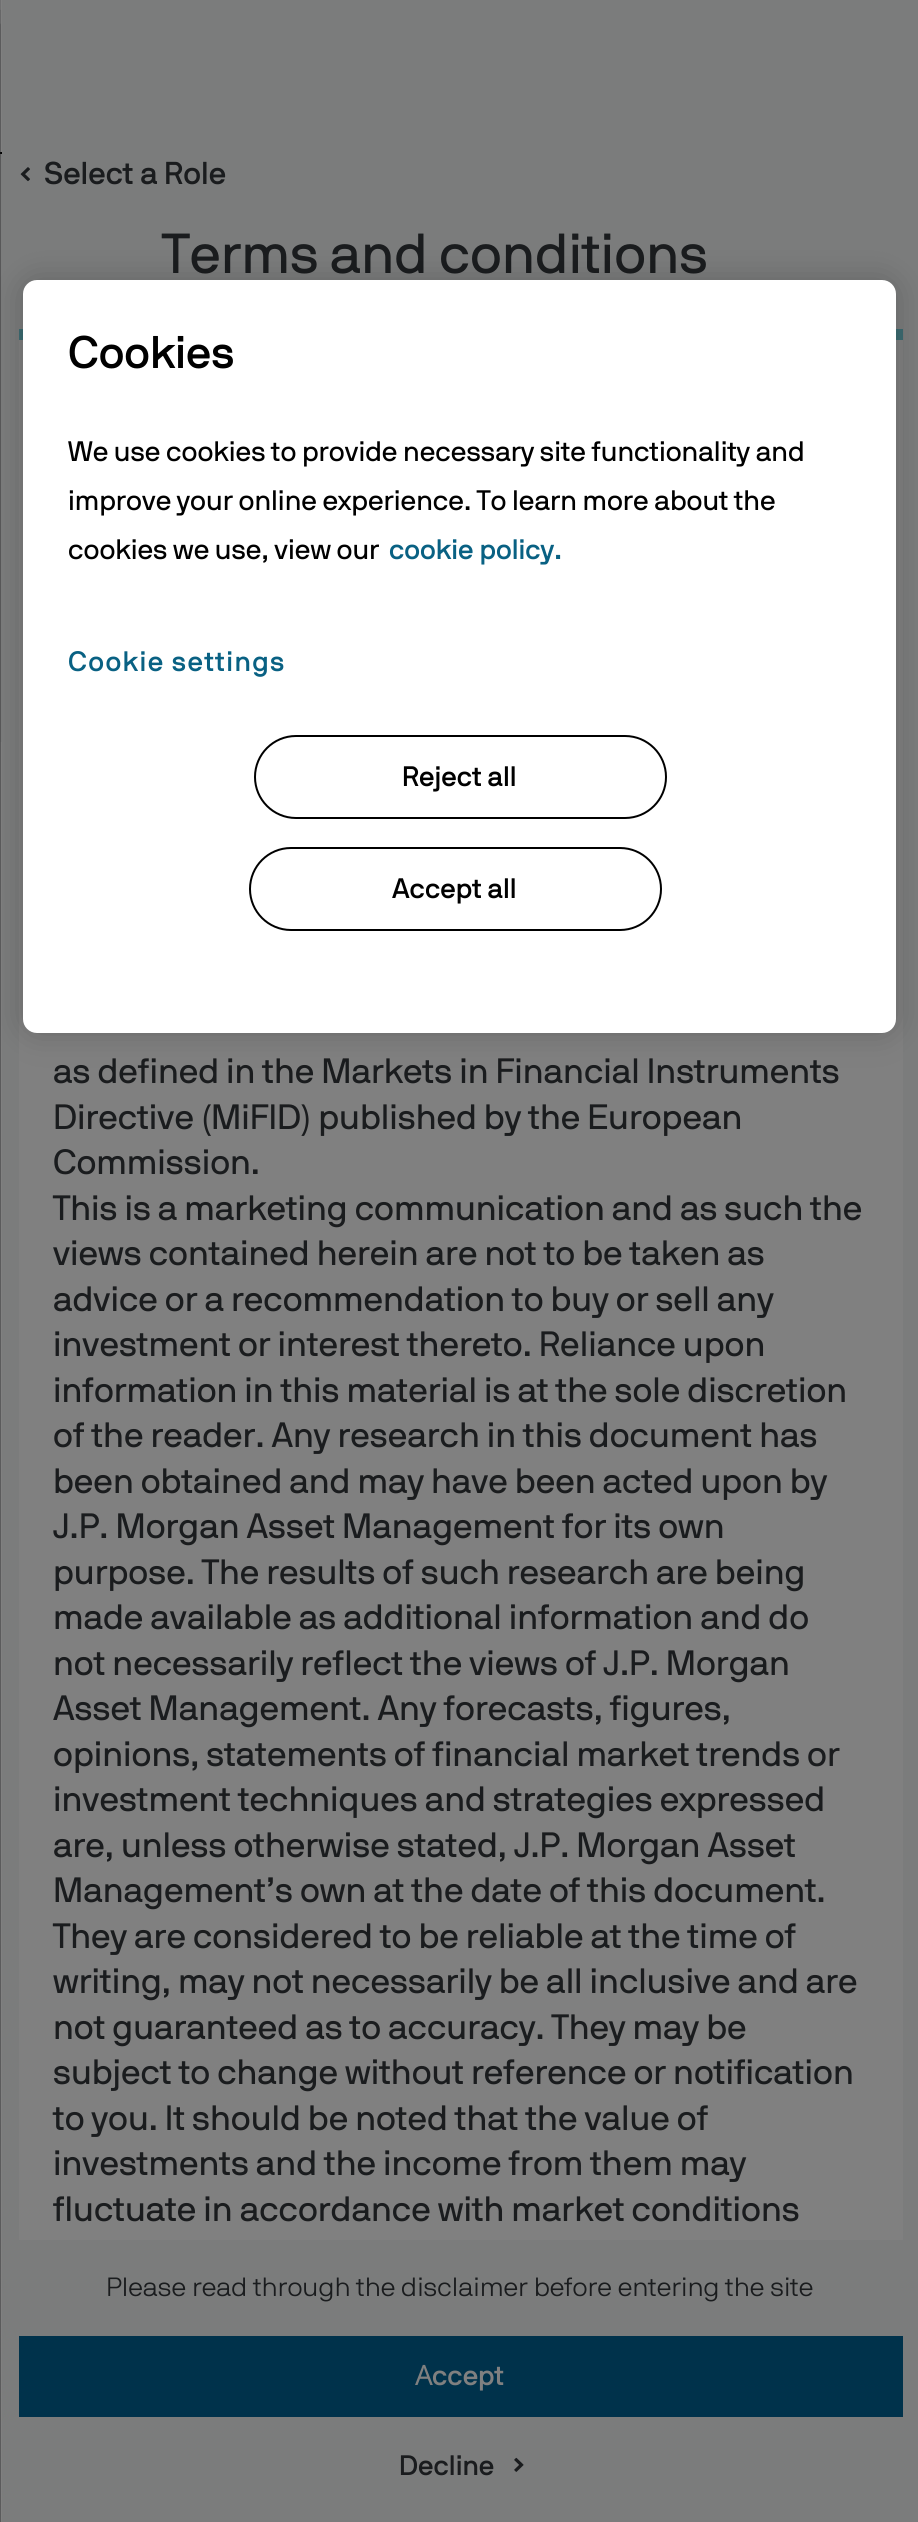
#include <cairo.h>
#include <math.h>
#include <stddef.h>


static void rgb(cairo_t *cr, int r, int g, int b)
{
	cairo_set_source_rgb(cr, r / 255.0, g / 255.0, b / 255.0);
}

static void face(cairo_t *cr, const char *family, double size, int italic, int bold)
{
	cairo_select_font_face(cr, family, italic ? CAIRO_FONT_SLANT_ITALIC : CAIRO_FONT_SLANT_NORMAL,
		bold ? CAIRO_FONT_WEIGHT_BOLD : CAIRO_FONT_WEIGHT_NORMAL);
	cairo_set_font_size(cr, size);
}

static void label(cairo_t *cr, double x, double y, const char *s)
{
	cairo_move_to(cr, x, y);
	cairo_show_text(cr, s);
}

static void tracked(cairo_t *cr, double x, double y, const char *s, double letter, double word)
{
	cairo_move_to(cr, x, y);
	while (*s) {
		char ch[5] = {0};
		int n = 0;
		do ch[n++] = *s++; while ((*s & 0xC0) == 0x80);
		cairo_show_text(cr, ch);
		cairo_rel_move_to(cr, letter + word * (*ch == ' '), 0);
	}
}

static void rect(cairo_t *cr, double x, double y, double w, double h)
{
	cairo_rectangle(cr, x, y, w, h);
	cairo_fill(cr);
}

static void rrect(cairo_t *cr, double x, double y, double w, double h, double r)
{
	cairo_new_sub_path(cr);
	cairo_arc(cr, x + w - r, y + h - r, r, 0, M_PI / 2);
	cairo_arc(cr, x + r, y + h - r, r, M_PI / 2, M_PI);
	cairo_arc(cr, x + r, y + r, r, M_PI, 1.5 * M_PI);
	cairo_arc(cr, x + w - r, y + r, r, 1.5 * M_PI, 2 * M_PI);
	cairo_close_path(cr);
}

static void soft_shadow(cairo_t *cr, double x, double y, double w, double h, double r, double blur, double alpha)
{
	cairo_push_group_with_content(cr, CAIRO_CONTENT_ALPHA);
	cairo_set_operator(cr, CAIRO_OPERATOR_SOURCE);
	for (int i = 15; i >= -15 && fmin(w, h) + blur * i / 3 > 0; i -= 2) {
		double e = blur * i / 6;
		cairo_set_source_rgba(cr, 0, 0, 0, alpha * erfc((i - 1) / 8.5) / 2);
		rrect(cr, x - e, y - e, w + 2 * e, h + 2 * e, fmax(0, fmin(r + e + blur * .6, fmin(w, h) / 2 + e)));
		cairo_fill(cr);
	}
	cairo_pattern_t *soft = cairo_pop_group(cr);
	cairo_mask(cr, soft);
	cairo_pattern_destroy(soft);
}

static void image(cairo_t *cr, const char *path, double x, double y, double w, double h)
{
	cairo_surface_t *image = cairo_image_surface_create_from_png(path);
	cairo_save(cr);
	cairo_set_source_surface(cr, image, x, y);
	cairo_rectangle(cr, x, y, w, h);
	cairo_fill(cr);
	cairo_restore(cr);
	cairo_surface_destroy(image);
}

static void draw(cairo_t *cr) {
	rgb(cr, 128, 128, 128);
	cairo_paint(cr);
	rgb(cr, 123, 124, 124);
	rect(cr, 0, 154, 2, 588);
	rgb(cr, 0, 0, 0);
	rect(cr, 0, 152, 2, 2);
	cairo_save(cr);
	cairo_rectangle(cr, 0, 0, 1, 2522);
	cairo_clip(cr);
	rgb(cr, 26, 28, 30);
	soft_shadow(cr, 9, 25, 905, 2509, 0, 29, 1);
	cairo_restore(cr);
	rgb(cr, 123, 124, 124);
	rect(cr, 2, 0, 916, 2522);
	image(cr, "image0.png", 20, 167, 10, 15);
	face(cr, "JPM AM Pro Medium", 31.5, 0, 0);
	rgb(cr, 26, 28, 30);
	label(cr, 44, 184, "Select a Role");
	face(cr, "JPM AM Pro", 56, 0, 0);
	label(cr, 162, 273, "Terms and conditions");
	rgb(cr, 128, 128, 128);
	rect(cr, 19, 340, 884, 1900);
	rgb(cr, 60, 107, 113);
	rect(cr, 19, 329, 884, 11);
	face(cr, "JPM AM Pro", 35, 0, 0);
	rgb(cr, 26, 28, 30);
	label(cr, 53, 1083, "as defined in the Markets in Financial Instruments");
	label(cr, 53, 1129, "Directive (MiFID) published by the European");
	label(cr, 53, 1174, "Commission.");
	label(cr, 53, 1220, "This is a marketing communication and as such the");
	label(cr, 53, 1265, "views contained herein are not to be taken as");
	label(cr, 53, 1311, "advice or a recommendation to buy or sell any");
	label(cr, 53, 1356, "investment or interest thereto. Reliance upon");
	label(cr, 53, 1402, "information in this material is at the sole discretion");
	label(cr, 53, 1447, "of the reader. Any research in this document has");
	label(cr, 53, 1493, "been obtained and may have been acted upon by");
	label(cr, 53, 1538, "J.P. Morgan Asset Management for its own");
	label(cr, 53, 1584, "purpose. The results of such research are being");
	label(cr, 53, 1629, "made available as additional information and do");
	label(cr, 53, 1675, "not necessarily reflect the views of J.P. Morgan");
	label(cr, 53, 1720, "Asset Management. Any forecasts, figures,");
	label(cr, 53, 1766, "opinions, statements of financial market trends or");
	label(cr, 53, 1811, "investment techniques and strategies expressed");
	label(cr, 53, 1857, "are, unless otherwise stated, J.P. Morgan Asset");
	label(cr, 53, 1902, "Management’s own at the date of this document.");
	label(cr, 53, 1948, "They are considered to be reliable at the time of");
	label(cr, 53, 1993, "writing, may not necessarily be all inclusive and are");
	label(cr, 53, 2039, "not guaranteed as to accuracy. They may be");
	label(cr, 53, 2084, "subject to change without reference or notification");
	label(cr, 53, 2130, "to you. It should be noted that the value of");
	label(cr, 53, 2175, "investments and the income from them may");
	label(cr, 53, 2221, "fluctuate in accordance with market conditions");
	face(cr, "JPM AM Pro Light", 26.25, 0, 0);
	label(cr, 106, 2296, "Please read through the disclaimer before entering the site");
	rgb(cr, 0, 50, 75);
	rect(cr, 19, 2336, 884, 81);
	face(cr, "Noto Sans", 28, 0, 0);
	rgb(cr, 128, 128, 128);
	label(cr, 415, 2385, "A");
	face(cr, "JPM AM Pro Medium", 28, 0, 0);
	label(cr, 432, 2385, "ccept");
	rgb(cr, 26, 28, 30);
	label(cr, 399, 2475, "Decline");
	image(cr, "image1.png", 514, 2457, 10, 15);
	rgb(cr, 0, 0, 0);
	soft_shadow(cr, 23, 280, 873, 753, 14, 16, 0.2);
	rgb(cr, 255, 255, 255);
	rrect(cr, 23, 280, 873, 753, 14);
	cairo_fill(cr);
	face(cr, "JPM AM Pro Medium", 45.5, 0, 0);
	rgb(cr, 0, 0, 0);
	label(cr, 68, 368, "Cookies");
	face(cr, "JPM AM Pro", 28, 0, 0);
	label(cr, 68, 461, "We use cookies to provide necessary site functionality and");
	label(cr, 68, 510, "improve your online experience. To learn more about the");
	label(cr, 68, 559, "cookies we use, view our");
	face(cr, "JPM AM Pro Medium", 28, 0, 0);
	rgb(cr, 9, 97, 131);
	label(cr, 389, 559, "cookie policy.");
	tracked(cr, 68, 671, "Cookie settings", 1.4, 0);
	rrect(cr, 255, 736, 411, 82, 41);
	rgb(cr, 0, 0, 0);
	cairo_stroke(cr);
	label(cr, 402, 786, "Reject all");
	rrect(cr, 250, 848, 411, 82, 41);
	cairo_stroke(cr);
	label(cr, 392, 898, "Accept all");
}

int main(void) {
	cairo_surface_t *surface = cairo_image_surface_create(CAIRO_FORMAT_RGB24, 918, 2522);
	cairo_t *cr = cairo_create(surface);
	cairo_font_options_t *options = cairo_font_options_create();
	cairo_font_options_set_hint_metrics(options, CAIRO_HINT_METRICS_OFF);
	cairo_font_options_set_hint_style(options, CAIRO_HINT_STYLE_NONE);
	cairo_set_font_options(cr, options);
	cairo_set_miter_limit(cr, 4);
	draw(cr);
	cairo_surface_write_to_png(surface, "render.png");
	cairo_font_options_destroy(options);
	cairo_destroy(cr);
	cairo_surface_destroy(surface);
	return 0;
}
